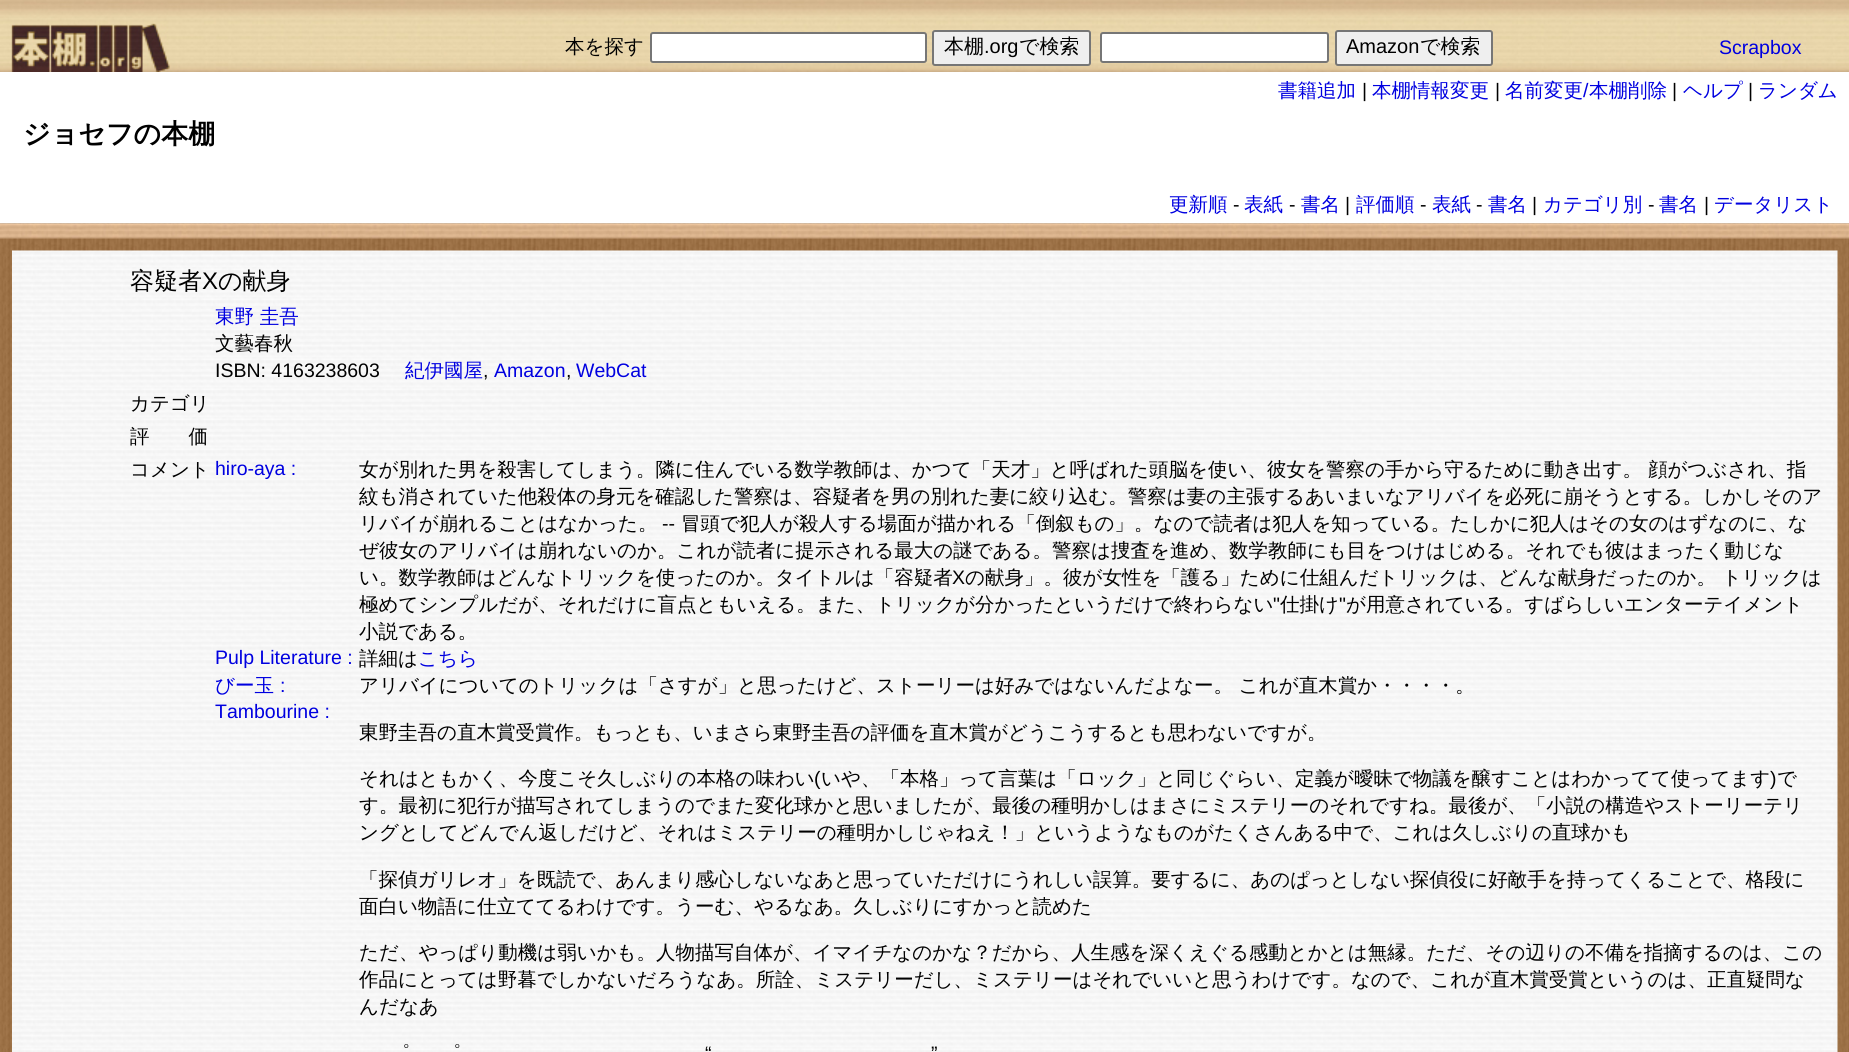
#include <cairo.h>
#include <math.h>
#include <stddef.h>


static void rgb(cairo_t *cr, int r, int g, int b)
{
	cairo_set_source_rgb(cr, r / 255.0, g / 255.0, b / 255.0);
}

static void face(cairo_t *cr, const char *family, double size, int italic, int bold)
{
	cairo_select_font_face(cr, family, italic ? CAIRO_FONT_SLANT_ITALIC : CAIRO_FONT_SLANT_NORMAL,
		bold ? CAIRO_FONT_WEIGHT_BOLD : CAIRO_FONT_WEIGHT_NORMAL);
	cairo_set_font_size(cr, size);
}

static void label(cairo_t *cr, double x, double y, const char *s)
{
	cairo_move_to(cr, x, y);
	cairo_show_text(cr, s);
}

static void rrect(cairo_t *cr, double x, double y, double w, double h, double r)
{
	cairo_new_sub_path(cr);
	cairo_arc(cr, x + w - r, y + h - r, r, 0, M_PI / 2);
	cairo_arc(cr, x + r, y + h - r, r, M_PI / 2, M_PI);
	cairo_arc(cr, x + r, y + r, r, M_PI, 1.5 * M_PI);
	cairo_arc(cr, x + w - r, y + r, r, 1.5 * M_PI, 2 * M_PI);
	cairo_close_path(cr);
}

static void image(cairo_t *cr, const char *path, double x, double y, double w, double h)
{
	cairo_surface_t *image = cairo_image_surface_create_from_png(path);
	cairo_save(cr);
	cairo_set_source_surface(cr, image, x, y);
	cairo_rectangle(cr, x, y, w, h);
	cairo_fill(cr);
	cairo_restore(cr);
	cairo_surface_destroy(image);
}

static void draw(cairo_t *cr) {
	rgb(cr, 255, 255, 255);
	cairo_paint(cr);
	image(cr, "image0.png", 0, 0, 1849, 72);
	face(cr, "WenQuanYi Zen Hei Medium", 19.5, 0, 0);
	rgb(cr, 0, 0, 0);
	label(cr, 565, 53, "本を探す");
	rgb(cr, 255, 255, 255);
	rrect(cr, 651, 33, 275, 29, 2);
	cairo_fill_preserve(cr);
	rgb(cr, 118, 118, 118);
	cairo_stroke(cr);
	rgb(cr, 239, 239, 239);
	rrect(cr, 933, 31, 157, 34, 2);
	cairo_fill_preserve(cr);
	rgb(cr, 118, 118, 118);
	cairo_stroke(cr);
	face(cr, "WenQuanYi Zen Hei Medium", 20, 0, 0);
	rgb(cr, 0, 0, 0);
	label(cr, 944, 53, "本棚");
	face(cr, "Liberation Sans", 20, 0, 0);
	label(cr, 984, 53, ".org");
	face(cr, "WenQuanYi Zen Hei Medium", 20, 0, 0);
	label(cr, 1019, 53, "で検索");
	rgb(cr, 255, 255, 255);
	rrect(cr, 1101, 33, 227, 29, 2);
	cairo_fill_preserve(cr);
	rgb(cr, 118, 118, 118);
	cairo_stroke(cr);
	rgb(cr, 239, 239, 239);
	rrect(cr, 1336, 31, 156, 34, 2);
	cairo_fill_preserve(cr);
	rgb(cr, 118, 118, 118);
	cairo_stroke(cr);
	face(cr, "Liberation Sans", 20, 0, 0);
	rgb(cr, 0, 0, 0);
	label(cr, 1346, 53, "Amazon");
	face(cr, "WenQuanYi Zen Hei Medium", 20, 0, 0);
	label(cr, 1420, 53, "で検索");
	face(cr, "Liberation Sans", 19.5, 0, 0);
	rgb(cr, 0, 0, 224);
	label(cr, 1719, 54, "Scrapbox");
	face(cr, "WenQuanYi Zen Hei Medium", 19.5, 0, 0);
	label(cr, 1278, 97, "書籍追加");
	face(cr, "Liberation Sans", 19.5, 0, 0);
	rgb(cr, 0, 0, 0);
	label(cr, 1362, 97, "|");
	face(cr, "WenQuanYi Zen Hei Medium", 19.5, 0, 0);
	rgb(cr, 0, 0, 224);
	label(cr, 1372, 97, "本棚情報変更");
	face(cr, "Liberation Sans", 19.5, 0, 0);
	rgb(cr, 0, 0, 0);
	label(cr, 1495, 97, "|");
	face(cr, "WenQuanYi Zen Hei Medium", 19.5, 0, 0);
	rgb(cr, 0, 0, 224);
	label(cr, 1505, 97, "名前変更");
	face(cr, "Liberation Sans", 19.5, 0, 0);
	label(cr, 1583, 97, "/");
	face(cr, "WenQuanYi Zen Hei Medium", 19.5, 0, 0);
	label(cr, 1589, 97, "本棚削除");
	face(cr, "Liberation Sans", 19.5, 0, 0);
	rgb(cr, 0, 0, 0);
	label(cr, 1672, 97, "|");
	face(cr, "WenQuanYi Zen Hei Medium", 19.5, 0, 0);
	rgb(cr, 0, 0, 224);
	label(cr, 1683, 97, "ヘルプ");
	face(cr, "Liberation Sans", 19.5, 0, 0);
	rgb(cr, 0, 0, 0);
	label(cr, 1748, 97, "|");
	face(cr, "WenQuanYi Zen Hei Medium", 19.5, 0, 0);
	rgb(cr, 0, 0, 224);
	label(cr, 1758, 97, "ランダム");
	face(cr, "WenQuanYi Zen Hei", 27, 0, 1);
	rgb(cr, 0, 0, 0);
	label(cr, 23, 143, "ジョセフの本棚");
	face(cr, "WenQuanYi Zen Hei Medium", 19.5, 0, 0);
	rgb(cr, 0, 0, 224);
	label(cr, 1169, 211, "更新順");
	face(cr, "Liberation Sans", 19.5, 0, 0);
	rgb(cr, 0, 0, 0);
	label(cr, 1233, 211, "-");
	face(cr, "WenQuanYi Zen Hei Medium", 19.5, 0, 0);
	rgb(cr, 0, 0, 224);
	label(cr, 1244, 211, "表紙");
	face(cr, "Liberation Sans", 19.5, 0, 0);
	rgb(cr, 0, 0, 0);
	label(cr, 1289, 211, "-");
	face(cr, "WenQuanYi Zen Hei Medium", 19.5, 0, 0);
	rgb(cr, 0, 0, 224);
	label(cr, 1301, 211, "書名");
	face(cr, "Liberation Sans", 19.5, 0, 0);
	rgb(cr, 0, 0, 0);
	label(cr, 1345, 211, "|");
	face(cr, "WenQuanYi Zen Hei Medium", 19.5, 0, 0);
	rgb(cr, 0, 0, 224);
	label(cr, 1356, 211, "評価順");
	face(cr, "Liberation Sans", 19.5, 0, 0);
	rgb(cr, 0, 0, 0);
	label(cr, 1420, 211, "-");
	face(cr, "WenQuanYi Zen Hei Medium", 19.5, 0, 0);
	rgb(cr, 0, 0, 224);
	label(cr, 1432, 211, "表紙");
	face(cr, "Liberation Sans", 19.5, 0, 0);
	rgb(cr, 0, 0, 0);
	label(cr, 1476, 211, "-");
	face(cr, "WenQuanYi Zen Hei Medium", 19.5, 0, 0);
	rgb(cr, 0, 0, 224);
	label(cr, 1488, 211, "書名");
	face(cr, "Liberation Sans", 19.5, 0, 0);
	rgb(cr, 0, 0, 0);
	label(cr, 1532, 211, "|");
	face(cr, "WenQuanYi Zen Hei Medium", 19.5, 0, 0);
	rgb(cr, 0, 0, 224);
	label(cr, 1543, 211, "カテゴリ別");
	face(cr, "Liberation Sans", 19.5, 0, 0);
	rgb(cr, 0, 0, 0);
	label(cr, 1648, 211, "-");
	face(cr, "WenQuanYi Zen Hei Medium", 19.5, 0, 0);
	rgb(cr, 0, 0, 224);
	label(cr, 1659, 211, "書名");
	face(cr, "Liberation Sans", 19.5, 0, 0);
	rgb(cr, 0, 0, 0);
	label(cr, 1704, 211, "|");
	face(cr, "WenQuanYi Zen Hei Medium", 19.5, 0, 0);
	rgb(cr, 0, 0, 224);
	label(cr, 1714, 211, "データリスト");
	image(cr, "image1.png", 0, 223, 1849, 829);
	image(cr, "image2.png", 0, 223, 1849, 16);
	image(cr, "image3.png", 12, 250, 1826, 802);
	face(cr, "WenQuanYi Zen Hei Medium", 24, 0, 0);
	rgb(cr, 0, 0, 0);
	label(cr, 130, 289, "容疑者");
	face(cr, "Liberation Sans", 24, 0, 0);
	label(cr, 202, 289, "X");
	face(cr, "WenQuanYi Zen Hei Medium", 24, 0, 0);
	label(cr, 218, 289, "の献身");
	face(cr, "WenQuanYi Zen Hei Medium", 19.5, 0, 0);
	rgb(cr, 0, 0, 224);
	label(cr, 215, 323, "東野 圭吾");
	rgb(cr, 0, 0, 0);
	label(cr, 215, 350, "文藝春秋");
	face(cr, "Liberation Sans", 19.5, 0, 0);
	label(cr, 215, 377, "ISBN: 4163238603");
	face(cr, "WenQuanYi Zen Hei Medium", 19.5, 0, 0);
	rgb(cr, 0, 0, 224);
	label(cr, 405, 377, "紀伊國屋");
	face(cr, "Liberation Sans", 19.5, 0, 0);
	rgb(cr, 0, 0, 0);
	label(cr, 483, 377, ",");
	rgb(cr, 0, 0, 224);
	label(cr, 494, 377, "Amazon");
	rgb(cr, 0, 0, 0);
	label(cr, 566, 377, ",");
	rgb(cr, 0, 0, 224);
	label(cr, 576, 377, "WebCat");
	face(cr, "WenQuanYi Zen Hei Medium", 19.5, 0, 0);
	rgb(cr, 0, 0, 0);
	label(cr, 130, 410, "カテゴリ");
	label(cr, 130, 443, "評　　価");
	label(cr, 130, 476, "コメント");
	face(cr, "Liberation Sans", 19.5, 0, 0);
	rgb(cr, 0, 0, 224);
	label(cr, 215, 475, "hiro-aya :");
	face(cr, "WenQuanYi Zen Hei Medium", 19.5, 0, 0);
	rgb(cr, 0, 0, 0);
	label(cr, 359, 476, "女が別れた男を殺害してしまう。隣に住んでいる数学教師は、かつて「天才」と呼ばれた頭脳を使い、彼女を警察の手から守るために動き出す。 顔がつぶされ、指");
	label(cr, 359, 503, "紋も消されていた他殺体の身元を確認した警察は、容疑者を男の別れた妻に絞り込む。警察は妻の主張するあいまいなアリバイを必死に崩そうとする。しかしそのア");
	label(cr, 359, 530, "リバイが崩れることはなかった。");
	face(cr, "Liberation Sans", 19.5, 0, 0);
	label(cr, 662, 530, "--");
	face(cr, "WenQuanYi Zen Hei Medium", 19.5, 0, 0);
	label(cr, 681, 530, "冒頭で犯人が殺人する場面が描かれる「倒叙もの」。なので読者は犯人を知っている。たしかに犯人はその女のはずなのに、な");
	label(cr, 359, 557, "ぜ彼女のアリバイは崩れないのか。これが読者に提示される最大の謎である。警察は捜査を進め、数学教師にも目をつけはじめる。それでも彼はまったく動じな");
	label(cr, 359, 584, "い。数学教師はどんなトリックを使ったのか。タイトルは「容疑者");
	face(cr, "Liberation Sans", 19.5, 0, 0);
	label(cr, 952, 584, "X");
	face(cr, "WenQuanYi Zen Hei Medium", 19.5, 0, 0);
	label(cr, 965, 584, "の献身」。彼が女性を「護る」ために仕組んだトリックは、どんな献身だったのか。 トリックは");
	label(cr, 359, 611, "極めてシンプルだが、それだけに盲点ともいえる。また、トリックが分かったというだけで終わらない");
	face(cr, "Liberation Sans", 19.5, 0, 0);
	label(cr, 1273, 611, "\"");
	face(cr, "WenQuanYi Zen Hei Medium", 19.5, 0, 0);
	label(cr, 1280, 611, "仕掛け");
	face(cr, "Liberation Sans", 19.5, 0, 0);
	label(cr, 1339, 611, "\"");
	face(cr, "WenQuanYi Zen Hei Medium", 19.5, 0, 0);
	label(cr, 1346, 611, "が用意されている。すばらしいエンターテイメント");
	label(cr, 359, 638, "小説である。");
	face(cr, "Liberation Sans", 19.5, 0, 0);
	rgb(cr, 0, 0, 224);
	label(cr, 215, 664, "Pulp Literature :");
	face(cr, "WenQuanYi Zen Hei Medium", 19.5, 0, 0);
	rgb(cr, 0, 0, 0);
	label(cr, 359, 665, "詳細は");
	rgb(cr, 0, 0, 224);
	label(cr, 418, 665, "こちら");
	label(cr, 215, 692, "びー玉");
	face(cr, "Liberation Sans", 19.5, 0, 0);
	label(cr, 280, 692, ":");
	face(cr, "WenQuanYi Zen Hei Medium", 19.5, 0, 0);
	rgb(cr, 0, 0, 0);
	label(cr, 359, 692, "アリバイについてのトリックは「さすが」と思ったけど、ストーリーは好みではないんだよなー。 これが直木賞か・・・・。");
	face(cr, "Liberation Sans", 19.5, 0, 0);
	rgb(cr, 0, 0, 224);
	label(cr, 215, 718, "Tambourine :");
	face(cr, "WenQuanYi Zen Hei Medium", 19.5, 0, 0);
	rgb(cr, 0, 0, 0);
	label(cr, 359, 739, "東野圭吾の直木賞受賞作。もっとも、いまさら東野圭吾の評価を直木賞がどうこうするとも思わないですが。");
	label(cr, 359, 785, "それはともかく、今度こそ久しぶりの本格の味わい");
	face(cr, "Liberation Sans", 19.5, 0, 0);
	label(cr, 814, 785, "(");
	face(cr, "WenQuanYi Zen Hei Medium", 19.5, 0, 0);
	label(cr, 821, 785, "いや、「本格」って言葉は「ロック」と同じぐらい、定義が曖昧で物議を醸すことはわかってて使ってます");
	face(cr, "Liberation Sans", 19.5, 0, 0);
	label(cr, 1770, 785, ")");
	face(cr, "WenQuanYi Zen Hei Medium", 19.5, 0, 0);
	label(cr, 1777, 785, "で");
	label(cr, 359, 812, "す。最初に犯行が描写されてしまうのでまた変化球かと思いましたが、最後の種明かしはまさにミステリーのそれですね。最後が、「小説の構造やストーリーテリ");
	label(cr, 359, 839, "ングとしてどんでん返しだけど、それはミステリーの種明かしじゃねえ！」というようなものがたくさんある中で、これは久しぶりの直球かも");
	label(cr, 359, 886, "「探偵ガリレオ」を既読で、あんまり感心しないなあと思っていただけにうれしい誤算。要するに、あのぱっとしない探偵役に好敵手を持ってくることで、格段に");
	label(cr, 359, 913, "面白い物語に仕立ててるわけです。うーむ、やるなあ。久しぶりにすかっと読めた");
	label(cr, 359, 959, "ただ、やっぱり動機は弱いかも。人物描写自体が、イマイチなのかな？だから、人生感を深くえぐる感動とかとは無縁。ただ、その辺りの不備を指摘するのは、この");
	label(cr, 359, 986, "作品にとっては野暮でしかないだろうなあ。所詮、ミステリーだし、ミステリーはそれでいいと思うわけです。なので、これが直木賞受賞というのは、正直疑問な");
	label(cr, 359, 1013, "んだなあ");
	label(cr, 390, 1060, "゜");
	label(cr, 421, 1060, "ゝ゜");
	face(cr, "Liberation Sans", 19.5, 0, 0);
	label(cr, 705, 1060, "“");
	label(cr, 931, 1060, "”");
}

int main(void) {
	cairo_surface_t *surface = cairo_image_surface_create(CAIRO_FORMAT_RGB24, 1849, 1052);
	cairo_t *cr = cairo_create(surface);
	cairo_font_options_t *options = cairo_font_options_create();
	cairo_font_options_set_hint_metrics(options, CAIRO_HINT_METRICS_OFF);
	cairo_font_options_set_hint_style(options, CAIRO_HINT_STYLE_NONE);
	cairo_set_font_options(cr, options);
	cairo_set_miter_limit(cr, 4);
	draw(cr);
	cairo_surface_write_to_png(surface, "render.png");
	cairo_font_options_destroy(options);
	cairo_destroy(cr);
	cairo_surface_destroy(surface);
	return 0;
}
